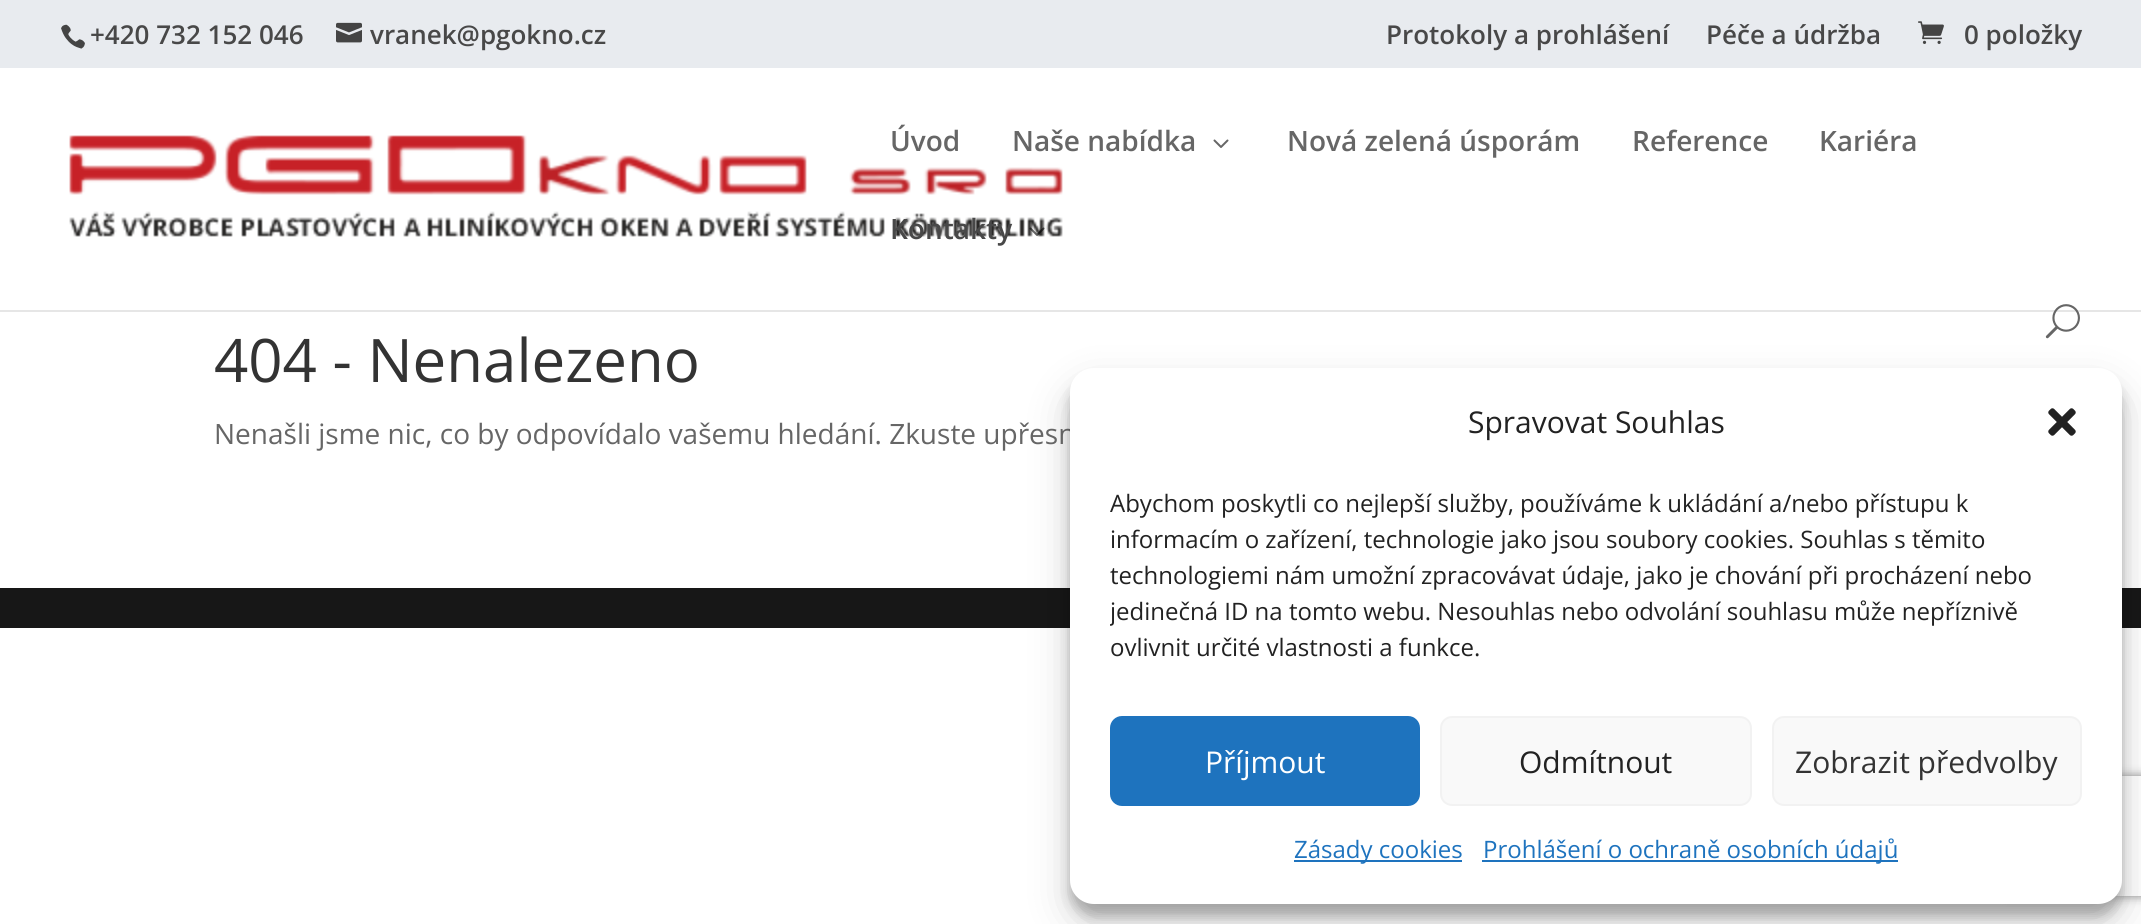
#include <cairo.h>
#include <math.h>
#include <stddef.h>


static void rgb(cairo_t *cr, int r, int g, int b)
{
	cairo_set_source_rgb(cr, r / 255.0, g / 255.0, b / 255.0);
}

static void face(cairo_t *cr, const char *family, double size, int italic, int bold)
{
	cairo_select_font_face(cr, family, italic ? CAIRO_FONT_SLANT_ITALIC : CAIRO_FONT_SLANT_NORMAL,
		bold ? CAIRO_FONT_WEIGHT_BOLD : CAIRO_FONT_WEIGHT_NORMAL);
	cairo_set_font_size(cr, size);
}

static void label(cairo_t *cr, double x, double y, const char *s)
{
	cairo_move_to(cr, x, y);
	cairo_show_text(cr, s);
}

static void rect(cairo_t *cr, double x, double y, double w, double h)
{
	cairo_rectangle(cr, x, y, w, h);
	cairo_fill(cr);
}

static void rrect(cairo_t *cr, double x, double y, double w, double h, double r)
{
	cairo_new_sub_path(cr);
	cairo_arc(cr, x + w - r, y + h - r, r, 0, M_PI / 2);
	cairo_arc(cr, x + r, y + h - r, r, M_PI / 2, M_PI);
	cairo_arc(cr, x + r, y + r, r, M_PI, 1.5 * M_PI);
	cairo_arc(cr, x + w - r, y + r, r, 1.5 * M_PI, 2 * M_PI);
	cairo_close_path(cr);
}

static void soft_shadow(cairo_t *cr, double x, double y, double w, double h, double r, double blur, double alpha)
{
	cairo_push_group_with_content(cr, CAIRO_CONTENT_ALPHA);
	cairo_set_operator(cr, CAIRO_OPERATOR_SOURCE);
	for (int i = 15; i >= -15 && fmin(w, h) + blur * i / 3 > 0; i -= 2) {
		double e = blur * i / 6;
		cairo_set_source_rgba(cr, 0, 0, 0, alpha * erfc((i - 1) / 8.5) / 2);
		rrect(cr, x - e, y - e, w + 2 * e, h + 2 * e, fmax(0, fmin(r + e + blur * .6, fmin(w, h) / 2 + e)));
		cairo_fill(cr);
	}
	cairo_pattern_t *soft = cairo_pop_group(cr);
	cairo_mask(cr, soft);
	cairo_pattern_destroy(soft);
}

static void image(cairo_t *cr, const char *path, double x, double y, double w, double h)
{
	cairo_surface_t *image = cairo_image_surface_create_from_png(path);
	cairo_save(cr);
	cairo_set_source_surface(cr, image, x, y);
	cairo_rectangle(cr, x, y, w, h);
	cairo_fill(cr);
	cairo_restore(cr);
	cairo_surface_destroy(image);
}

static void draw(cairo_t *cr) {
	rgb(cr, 255, 255, 255);
	cairo_paint(cr);
	rgb(cr, 232, 235, 239);
	rect(cr, 0, 0, 2141, 68);
	image(cr, "image0.png", 61, 24, 24, 25);
	face(cr, "Open Sans SemiBold", 26, 0, 0);
	rgb(cr, 72, 72, 72);
	label(cr, 90, 44, "+420 732 152 046");
	image(cr, "image1.png", 336, 22, 26, 21);
	label(cr, 370, 44, "vranek@pgokno.cz");
	label(cr, 1386, 44, "Protokoly a prohlášení");
	label(cr, 1706, 44, "Péče a údržba");
	image(cr, "image2.png", 1918, 21, 26, 23);
	label(cr, 1964, 44, "0 položky");
	rgb(cr, 230, 230, 230);
	rect(cr, 0, 310, 2141, 2);
	image(cr, "image3.png", 69, 135, 994, 102);
	face(cr, "Open Sans SemiBold", 28, 0, 0);
	rgb(cr, 102, 102, 102);
	label(cr, 890, 151, "Úvod");
	label(cr, 1012, 151, "Naše nabídka");
	image(cr, "image4.png", 1213, 139, 16, 9);
	label(cr, 1287, 151, "Nová zelená úsporám");
	label(cr, 1632, 151, "Reference");
	label(cr, 1819, 151, "Kariéra");
	rgb(cr, 72, 72, 72);
	label(cr, 890, 239, "Kontakty");
	image(cr, "image5.png", 1029, 227, 16, 9);
	rgb(cr, 23, 23, 23);
	rect(cr, 0, 588, 2141, 40);
	rgb(cr, 0, 0, 0);
	soft_shadow(cr, 1070, 388, 1052, 536, 24, 20, 0.19);
	image(cr, "image6.png", 2045, 304, 35, 35);
	face(cr, "Open Sans", 60, 0, 0);
	rgb(cr, 51, 51, 51);
	label(cr, 214, 382, "404 - Nenalezeno");
	face(cr, "Open Sans", 28, 0, 0);
	rgb(cr, 102, 102, 102);
	label(cr, 214, 444, "Nenašli jsme nic, co by odpovídalo vašemu hledání. Zkuste upřesn");
	rgb(cr, 0, 0, 0);
	soft_shadow(cr, 1070, 380, 1052, 536, 24, 6, 0.23);
	cairo_save(cr);
	cairo_set_fill_rule(cr, CAIRO_FILL_RULE_EVEN_ODD);
	cairo_new_path(cr);
	cairo_move_to(cr, 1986, 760);
	cairo_line_to(cr, 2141, 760);
	cairo_line_to(cr, 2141, 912);
	cairo_line_to(cr, 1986, 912);
	cairo_close_path(cr);
	cairo_move_to(cr, 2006, 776);
	cairo_line_to(cr, 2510, 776);
	cairo_curve_to(cr, 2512, 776, 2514, 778, 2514, 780);
	cairo_line_to(cr, 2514, 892);
	cairo_curve_to(cr, 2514, 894, 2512, 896, 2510, 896);
	cairo_line_to(cr, 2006, 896);
	cairo_curve_to(cr, 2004, 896, 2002, 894, 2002, 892);
	cairo_line_to(cr, 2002, 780);
	cairo_curve_to(cr, 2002, 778, 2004, 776, 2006, 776);
	cairo_close_path(cr);
	cairo_clip(cr);
	rgb(cr, 128, 128, 128);
	soft_shadow(cr, 2002, 776, 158, 120, 4, 5, 1);
	cairo_restore(cr);
	rgb(cr, 255, 255, 255);
	rrect(cr, 1070, 368, 1052, 536, 24);
	cairo_fill(cr);
	face(cr, "Open Sans", 30, 0, 0);
	rgb(cr, 34, 34, 34);
	label(cr, 1468, 433, "Spravovat Souhlas");
	image(cr, "image7.png", 2048, 408, 28, 28);
	face(cr, "Open Sans", 24, 0, 0);
	label(cr, 1110, 512, "Abychom poskytli co nejlepší služby, používáme k ukládání a/nebo přístupu k");
	label(cr, 1110, 548, "informacím o zařízení, technologie jako jsou soubory cookies. Souhlas s těmito");
	label(cr, 1110, 584, "technologiemi nám umožní zpracovávat údaje, jako je chování při procházení nebo");
	cairo_save(cr);
	cairo_rectangle(cr, 1110, 486, 972, 190);
	cairo_clip(cr);
	label(cr, 1110, 620, "jedinečná ID na tomto webu. Nesouhlas nebo odvolání souhlasu může nepříznivě");
	cairo_restore(cr);
	label(cr, 1110, 656, "ovlivnit určité vlastnosti a funkce.");
	rgb(cr, 30, 115, 190);
	rrect(cr, 1111, 717, 308, 88, 11);
	cairo_fill_preserve(cr);
	cairo_stroke(cr);
	face(cr, "Open Sans", 30, 0, 0);
	rgb(cr, 255, 255, 255);
	label(cr, 1205, 773, "Příjmout");
	rgb(cr, 249, 249, 249);
	rrect(cr, 1441, 717, 310, 88, 11);
	cairo_fill_preserve(cr);
	rgb(cr, 242, 242, 242);
	cairo_stroke(cr);
	rgb(cr, 34, 34, 34);
	label(cr, 1519, 773, "Odmítnout");
	rgb(cr, 249, 249, 249);
	rrect(cr, 1773, 717, 308, 88, 11);
	cairo_fill_preserve(cr);
	rgb(cr, 242, 242, 242);
	cairo_stroke(cr);
	rgb(cr, 51, 51, 51);
	label(cr, 1795, 773, "Zobrazit předvolby");
	rgb(cr, 30, 115, 190);
	rect(cr, 1294, 860, 168, 2);
	face(cr, "Open Sans", 24, 0, 0);
	label(cr, 1294, 858, "Zásady cookies");
	rect(cr, 1482, 860, 416, 2);
	label(cr, 1483, 858, "Prohlášení o ochraně osobních údajů");
}

int main(void) {
	cairo_surface_t *surface = cairo_image_surface_create(CAIRO_FORMAT_RGB24, 2141, 924);
	cairo_t *cr = cairo_create(surface);
	cairo_font_options_t *options = cairo_font_options_create();
	cairo_font_options_set_hint_metrics(options, CAIRO_HINT_METRICS_OFF);
	cairo_font_options_set_hint_style(options, CAIRO_HINT_STYLE_NONE);
	cairo_set_font_options(cr, options);
	cairo_set_miter_limit(cr, 4);
	draw(cr);
	cairo_surface_write_to_png(surface, "render.png");
	cairo_font_options_destroy(options);
	cairo_destroy(cr);
	cairo_surface_destroy(surface);
	return 0;
}
